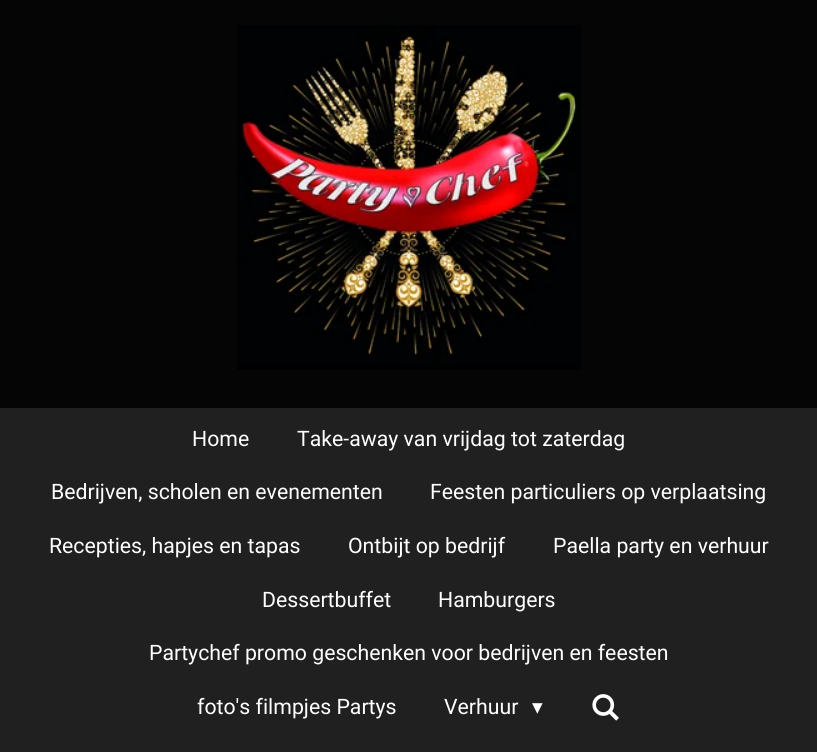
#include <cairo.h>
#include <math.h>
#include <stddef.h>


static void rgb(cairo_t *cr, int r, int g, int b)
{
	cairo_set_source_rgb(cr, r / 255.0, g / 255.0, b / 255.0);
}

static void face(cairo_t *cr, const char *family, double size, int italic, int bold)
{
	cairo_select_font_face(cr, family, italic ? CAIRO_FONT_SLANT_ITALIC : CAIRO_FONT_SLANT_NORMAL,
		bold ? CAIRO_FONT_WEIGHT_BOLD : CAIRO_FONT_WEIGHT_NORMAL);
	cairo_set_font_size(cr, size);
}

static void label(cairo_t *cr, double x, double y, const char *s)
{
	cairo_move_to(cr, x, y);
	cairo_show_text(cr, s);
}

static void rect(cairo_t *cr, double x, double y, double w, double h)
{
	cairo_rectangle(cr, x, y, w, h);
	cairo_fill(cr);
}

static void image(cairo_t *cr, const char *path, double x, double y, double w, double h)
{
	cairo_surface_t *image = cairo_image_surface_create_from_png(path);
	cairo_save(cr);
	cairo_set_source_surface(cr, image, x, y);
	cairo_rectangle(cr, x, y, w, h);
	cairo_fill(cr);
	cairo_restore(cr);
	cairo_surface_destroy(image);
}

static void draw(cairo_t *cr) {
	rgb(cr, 5, 5, 5);
	cairo_paint(cr);
	image(cr, "image0.png", 237, 25, 344, 345);
	rgb(cr, 32, 32, 32);
	rect(cr, 0, 408, 817, 344);
	face(cr, "Roboto", 21.25, 0, 0);
	rgb(cr, 255, 255, 255);
	label(cr, 192, 446, "Home");
	label(cr, 297, 446, "Take-away van vrijdag tot zaterdag");
	label(cr, 51, 499, "Bedrijven, scholen en evenementen");
	label(cr, 430, 499, "Feesten particuliers op verplaatsing");
	label(cr, 49, 553, "Recepties, hapjes en tapas");
	label(cr, 348, 553, "Ontbijt op bedrijf");
	label(cr, 553, 553, "Paella party en verhuur");
	label(cr, 262, 607, "Dessertbuffet");
	label(cr, 438, 607, "Hamburgers");
	label(cr, 149, 660, "Partychef promo geschenken voor bedrijven en feesten");
	label(cr, 197, 714, "foto's filmpjes Partys");
	label(cr, 444, 714, "Verhuur");
	face(cr, "DejaVu Sans", 21.25, 0, 0);
	label(cr, 532, 714, "▾");
	image(cr, "image1.png", 592, 694, 27, 27);
}

int main(void) {
	cairo_surface_t *surface = cairo_image_surface_create(CAIRO_FORMAT_RGB24, 817, 752);
	cairo_t *cr = cairo_create(surface);
	cairo_font_options_t *options = cairo_font_options_create();
	cairo_font_options_set_hint_metrics(options, CAIRO_HINT_METRICS_OFF);
	cairo_font_options_set_hint_style(options, CAIRO_HINT_STYLE_NONE);
	cairo_set_font_options(cr, options);
	cairo_set_miter_limit(cr, 4);
	draw(cr);
	cairo_surface_write_to_png(surface, "render.png");
	cairo_font_options_destroy(options);
	cairo_destroy(cr);
	cairo_surface_destroy(surface);
	return 0;
}
